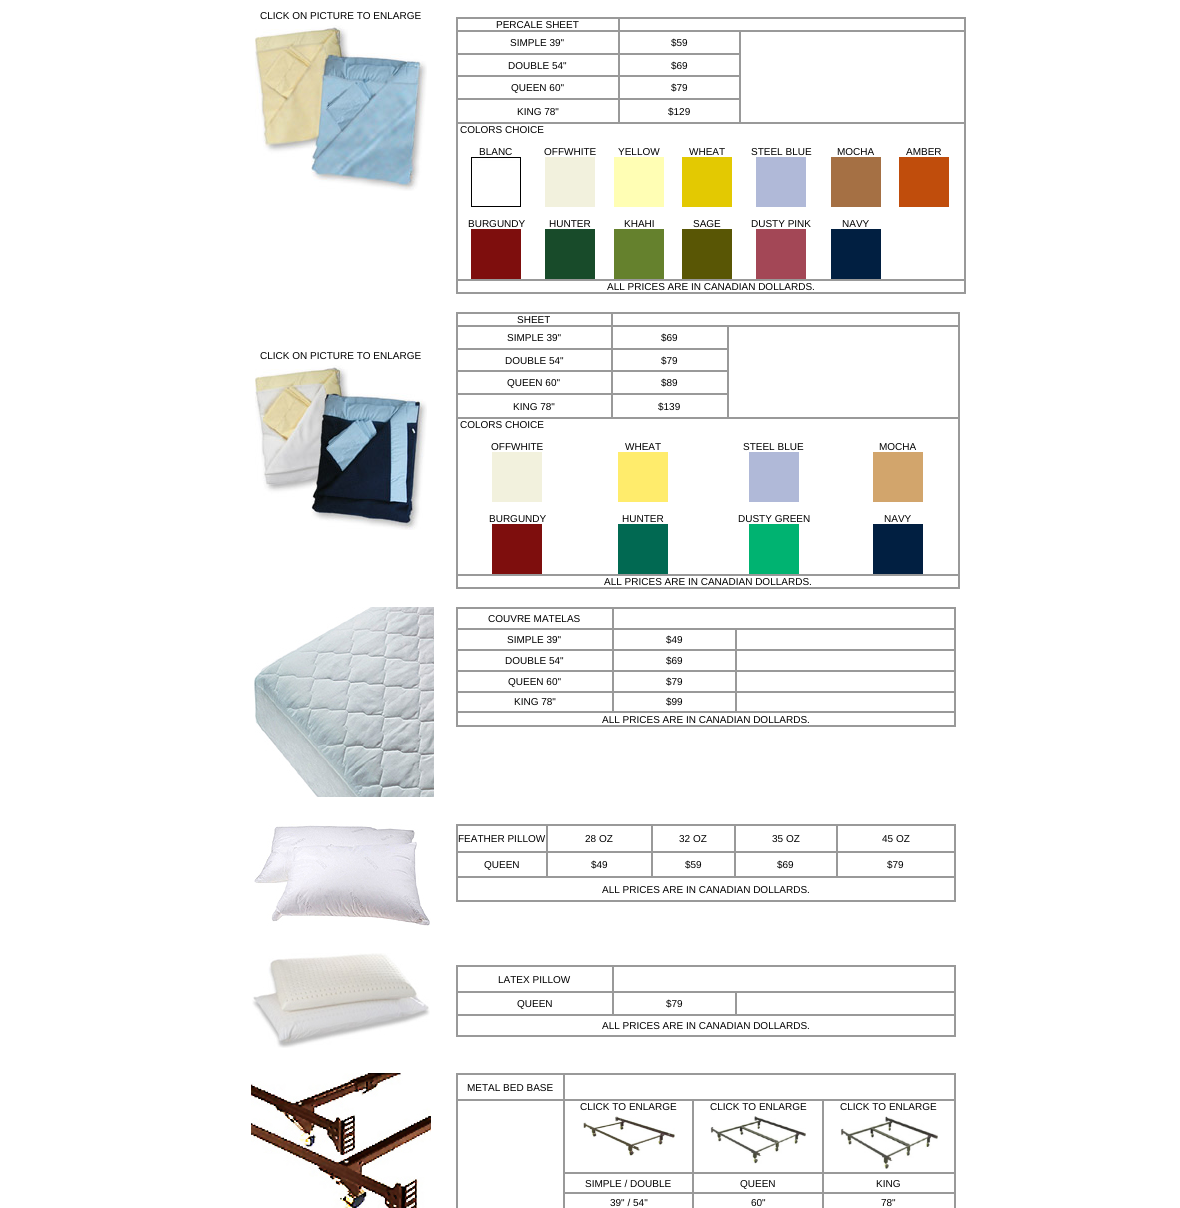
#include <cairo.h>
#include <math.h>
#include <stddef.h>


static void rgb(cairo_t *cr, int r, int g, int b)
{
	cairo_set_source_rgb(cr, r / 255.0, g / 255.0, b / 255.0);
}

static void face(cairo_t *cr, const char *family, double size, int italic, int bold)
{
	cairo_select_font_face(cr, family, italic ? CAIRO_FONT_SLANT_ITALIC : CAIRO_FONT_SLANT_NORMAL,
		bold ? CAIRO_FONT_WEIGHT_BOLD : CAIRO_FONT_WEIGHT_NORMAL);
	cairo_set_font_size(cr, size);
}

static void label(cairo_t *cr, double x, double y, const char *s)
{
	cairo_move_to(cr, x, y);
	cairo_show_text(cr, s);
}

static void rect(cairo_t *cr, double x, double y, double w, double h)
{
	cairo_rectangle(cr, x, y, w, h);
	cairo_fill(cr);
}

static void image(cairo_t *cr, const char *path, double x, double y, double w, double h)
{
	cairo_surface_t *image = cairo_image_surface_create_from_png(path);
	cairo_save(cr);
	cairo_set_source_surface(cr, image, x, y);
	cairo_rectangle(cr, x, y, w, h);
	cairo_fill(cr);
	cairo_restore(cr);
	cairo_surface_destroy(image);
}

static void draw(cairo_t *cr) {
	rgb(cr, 255, 255, 255);
	cairo_paint(cr);
	face(cr, "Liberation Sans", 10, 0, 0);
	rgb(cr, 0, 0, 0);
	label(cr, 260, 19, "CLICK ON PICTURE TO ENLARGE");
	image(cr, "image0.png", 255, 25, 172, 166);
	cairo_rectangle(cr, 456.5, 17.5, 509, 276);
	rgb(cr, 153, 153, 153);
	cairo_set_line_width(cr, 1);
	cairo_stroke(cr);
	cairo_rectangle(cr, 457.5, 18.5, 161, 12);
	cairo_stroke(cr);
	rgb(cr, 0, 0, 0);
	label(cr, 496, 28, "PERCALE SHEET");
	cairo_rectangle(cr, 619.5, 18.5, 345, 12);
	rgb(cr, 153, 153, 153);
	cairo_stroke(cr);
	cairo_rectangle(cr, 457.5, 31.5, 161, 22);
	cairo_stroke(cr);
	rgb(cr, 0, 0, 0);
	label(cr, 510, 46, "SIMPLE 39\"");
	cairo_rectangle(cr, 619.5, 31.5, 120, 22);
	rgb(cr, 153, 153, 153);
	cairo_stroke(cr);
	rgb(cr, 0, 0, 0);
	label(cr, 671, 46, "$59");
	cairo_rectangle(cr, 740.5, 31.5, 224, 91);
	rgb(cr, 153, 153, 153);
	cairo_stroke(cr);
	cairo_rectangle(cr, 457.5, 54.5, 161, 21);
	cairo_stroke(cr);
	rgb(cr, 0, 0, 0);
	label(cr, 508, 69, "DOUBLE 54\"");
	cairo_rectangle(cr, 619.5, 54.5, 120, 21);
	rgb(cr, 153, 153, 153);
	cairo_stroke(cr);
	rgb(cr, 0, 0, 0);
	label(cr, 671, 69, "$69");
	cairo_rectangle(cr, 457.5, 76.5, 161, 22);
	rgb(cr, 153, 153, 153);
	cairo_stroke(cr);
	rgb(cr, 0, 0, 0);
	label(cr, 511, 91, "QUEEN 60\"");
	cairo_rectangle(cr, 619.5, 76.5, 120, 22);
	rgb(cr, 153, 153, 153);
	cairo_stroke(cr);
	rgb(cr, 0, 0, 0);
	label(cr, 671, 91, "$79");
	cairo_rectangle(cr, 457.5, 99.5, 161, 23);
	rgb(cr, 153, 153, 153);
	cairo_stroke(cr);
	rgb(cr, 0, 0, 0);
	label(cr, 517, 115, "KING 78\"");
	cairo_rectangle(cr, 619.5, 99.5, 120, 23);
	rgb(cr, 153, 153, 153);
	cairo_stroke(cr);
	rgb(cr, 0, 0, 0);
	label(cr, 668, 115, "$129");
	cairo_rectangle(cr, 457.5, 123.5, 507, 156);
	rgb(cr, 153, 153, 153);
	cairo_stroke(cr);
	rgb(cr, 0, 0, 0);
	label(cr, 460, 133, "COLORS CHOICE");
	label(cr, 479, 155, "BLANC");
	image(cr, "image1.png", 471, 157, 50, 50);
	label(cr, 544, 155, "OFFWHITE");
	rgb(cr, 242, 241, 221);
	rect(cr, 545, 157, 50, 50);
	rgb(cr, 0, 0, 0);
	label(cr, 618, 155, "YELLOW");
	rgb(cr, 255, 254, 180);
	rect(cr, 614, 157, 50, 50);
	rgb(cr, 0, 0, 0);
	label(cr, 689, 155, "WHEAT");
	rgb(cr, 227, 201, 2);
	rect(cr, 682, 157, 50, 50);
	rgb(cr, 0, 0, 0);
	label(cr, 751, 155, "STEEL BLUE");
	rgb(cr, 176, 185, 216);
	rect(cr, 756, 157, 50, 50);
	rgb(cr, 0, 0, 0);
	label(cr, 837, 155, "MOCHA");
	rgb(cr, 165, 112, 68);
	rect(cr, 831, 157, 50, 50);
	rgb(cr, 0, 0, 0);
	label(cr, 906, 155, "AMBER");
	rgb(cr, 192, 77, 12);
	rect(cr, 899, 157, 50, 50);
	rgb(cr, 0, 0, 0);
	label(cr, 468, 227, "BURGUNDY");
	rgb(cr, 126, 14, 13);
	rect(cr, 471, 229, 50, 50);
	rgb(cr, 0, 0, 0);
	label(cr, 549, 227, "HUNTER");
	rgb(cr, 24, 75, 42);
	rect(cr, 545, 229, 50, 50);
	rgb(cr, 0, 0, 0);
	label(cr, 624, 227, "KHAHI");
	rgb(cr, 101, 129, 45);
	rect(cr, 614, 229, 50, 50);
	rgb(cr, 0, 0, 0);
	label(cr, 693, 227, "SAGE");
	rgb(cr, 89, 86, 5);
	rect(cr, 682, 229, 50, 50);
	rgb(cr, 0, 0, 0);
	label(cr, 751, 227, "DUSTY PINK");
	rgb(cr, 163, 71, 86);
	rect(cr, 756, 229, 50, 50);
	rgb(cr, 0, 0, 0);
	label(cr, 842, 227, "NAVY");
	rgb(cr, 1, 31, 65);
	rect(cr, 831, 229, 50, 50);
	cairo_rectangle(cr, 457.5, 280.5, 507, 12);
	rgb(cr, 153, 153, 153);
	cairo_stroke(cr);
	rgb(cr, 0, 0, 0);
	label(cr, 607, 290, "ALL PRICES ARE IN CANADIAN DOLLARDS.");
	label(cr, 260, 359, "CLICK ON PICTURE TO ENLARGE");
	image(cr, "image2.png", 255, 365, 172, 165);
	cairo_rectangle(cr, 456.5, 312.5, 503, 276);
	rgb(cr, 153, 153, 153);
	cairo_stroke(cr);
	cairo_rectangle(cr, 457.5, 313.5, 154, 12);
	cairo_stroke(cr);
	rgb(cr, 0, 0, 0);
	label(cr, 517, 323, "SHEET");
	cairo_rectangle(cr, 612.5, 313.5, 346, 12);
	rgb(cr, 153, 153, 153);
	cairo_stroke(cr);
	cairo_rectangle(cr, 457.5, 326.5, 154, 22);
	cairo_stroke(cr);
	rgb(cr, 0, 0, 0);
	label(cr, 507, 341, "SIMPLE 39\"");
	cairo_rectangle(cr, 612.5, 326.5, 115, 22);
	rgb(cr, 153, 153, 153);
	cairo_stroke(cr);
	rgb(cr, 0, 0, 0);
	label(cr, 661, 341, "$69");
	cairo_rectangle(cr, 728.5, 326.5, 230, 91);
	rgb(cr, 153, 153, 153);
	cairo_stroke(cr);
	cairo_rectangle(cr, 457.5, 349.5, 154, 21);
	cairo_stroke(cr);
	rgb(cr, 0, 0, 0);
	label(cr, 505, 364, "DOUBLE 54\"");
	cairo_rectangle(cr, 612.5, 349.5, 115, 21);
	rgb(cr, 153, 153, 153);
	cairo_stroke(cr);
	rgb(cr, 0, 0, 0);
	label(cr, 661, 364, "$79");
	cairo_rectangle(cr, 457.5, 371.5, 154, 22);
	rgb(cr, 153, 153, 153);
	cairo_stroke(cr);
	rgb(cr, 0, 0, 0);
	label(cr, 507, 386, "QUEEN 60\"");
	cairo_rectangle(cr, 612.5, 371.5, 115, 22);
	rgb(cr, 153, 153, 153);
	cairo_stroke(cr);
	rgb(cr, 0, 0, 0);
	label(cr, 661, 386, "$89");
	cairo_rectangle(cr, 457.5, 394.5, 154, 23);
	rgb(cr, 153, 153, 153);
	cairo_stroke(cr);
	rgb(cr, 0, 0, 0);
	label(cr, 513, 410, "KING 78\"");
	cairo_rectangle(cr, 612.5, 394.5, 115, 23);
	rgb(cr, 153, 153, 153);
	cairo_stroke(cr);
	rgb(cr, 0, 0, 0);
	label(cr, 658, 410, "$139");
	cairo_rectangle(cr, 457.5, 418.5, 501, 156);
	rgb(cr, 153, 153, 153);
	cairo_stroke(cr);
	rgb(cr, 0, 0, 0);
	label(cr, 460, 428, "COLORS CHOICE");
	label(cr, 491, 450, "OFFWHITE");
	rgb(cr, 242, 241, 221);
	rect(cr, 492, 452, 50, 50);
	rgb(cr, 0, 0, 0);
	label(cr, 625, 450, "WHEAT");
	rgb(cr, 255, 236, 108);
	rect(cr, 618, 452, 50, 50);
	rgb(cr, 0, 0, 0);
	label(cr, 743, 450, "STEEL BLUE");
	rgb(cr, 176, 185, 216);
	rect(cr, 749, 452, 50, 50);
	rgb(cr, 0, 0, 0);
	label(cr, 879, 450, "MOCHA");
	rgb(cr, 210, 165, 108);
	rect(cr, 873, 452, 50, 50);
	rgb(cr, 0, 0, 0);
	label(cr, 489, 522, "BURGUNDY");
	rgb(cr, 126, 14, 13);
	rect(cr, 492, 524, 50, 50);
	rgb(cr, 0, 0, 0);
	label(cr, 622, 522, "HUNTER");
	rgb(cr, 1, 105, 82);
	rect(cr, 618, 524, 50, 50);
	rgb(cr, 0, 0, 0);
	label(cr, 738, 522, "DUSTY GREEN");
	rgb(cr, 0, 179, 113);
	rect(cr, 749, 524, 50, 50);
	rgb(cr, 0, 0, 0);
	label(cr, 884, 522, "NAVY");
	rgb(cr, 1, 31, 65);
	rect(cr, 873, 524, 50, 50);
	cairo_rectangle(cr, 457.5, 575.5, 501, 12);
	rgb(cr, 153, 153, 153);
	cairo_stroke(cr);
	rgb(cr, 0, 0, 0);
	label(cr, 604, 585, "ALL PRICES ARE IN CANADIAN DOLLARDS.");
	image(cr, "image3.png", 254, 607, 180, 190);
	cairo_rectangle(cr, 456.5, 607.5, 499, 119);
	rgb(cr, 153, 153, 153);
	cairo_stroke(cr);
	cairo_rectangle(cr, 457.5, 608.5, 155, 20);
	cairo_stroke(cr);
	rgb(cr, 0, 0, 0);
	label(cr, 488, 622, "COUVRE MATELAS");
	cairo_rectangle(cr, 613.5, 608.5, 341, 20);
	rgb(cr, 153, 153, 153);
	cairo_stroke(cr);
	cairo_rectangle(cr, 457.5, 629.5, 155, 20);
	cairo_stroke(cr);
	rgb(cr, 0, 0, 0);
	label(cr, 507, 643, "SIMPLE 39\"");
	cairo_rectangle(cr, 613.5, 629.5, 122, 20);
	rgb(cr, 153, 153, 153);
	cairo_stroke(cr);
	rgb(cr, 0, 0, 0);
	label(cr, 666, 643, "$49");
	cairo_rectangle(cr, 736.5, 629.5, 218, 20);
	rgb(cr, 153, 153, 153);
	cairo_stroke(cr);
	cairo_rectangle(cr, 457.5, 650.5, 155, 20);
	cairo_stroke(cr);
	rgb(cr, 0, 0, 0);
	label(cr, 505, 664, "DOUBLE 54\"");
	cairo_rectangle(cr, 613.5, 650.5, 122, 20);
	rgb(cr, 153, 153, 153);
	cairo_stroke(cr);
	rgb(cr, 0, 0, 0);
	label(cr, 666, 664, "$69");
	cairo_rectangle(cr, 736.5, 650.5, 218, 20);
	rgb(cr, 153, 153, 153);
	cairo_stroke(cr);
	cairo_rectangle(cr, 457.5, 671.5, 155, 20);
	cairo_stroke(cr);
	rgb(cr, 0, 0, 0);
	label(cr, 508, 685, "QUEEN 60\"");
	cairo_rectangle(cr, 613.5, 671.5, 122, 20);
	rgb(cr, 153, 153, 153);
	cairo_stroke(cr);
	rgb(cr, 0, 0, 0);
	label(cr, 666, 685, "$79");
	cairo_rectangle(cr, 736.5, 671.5, 218, 20);
	rgb(cr, 153, 153, 153);
	cairo_stroke(cr);
	cairo_rectangle(cr, 457.5, 692.5, 155, 19);
	cairo_stroke(cr);
	rgb(cr, 0, 0, 0);
	label(cr, 514, 705, "KING 78\"");
	cairo_rectangle(cr, 613.5, 692.5, 122, 19);
	rgb(cr, 153, 153, 153);
	cairo_stroke(cr);
	rgb(cr, 0, 0, 0);
	label(cr, 666, 705, "$99");
	cairo_rectangle(cr, 736.5, 692.5, 218, 19);
	rgb(cr, 153, 153, 153);
	cairo_stroke(cr);
	cairo_rectangle(cr, 457.5, 712.5, 497, 13);
	cairo_stroke(cr);
	rgb(cr, 0, 0, 0);
	label(cr, 602, 723, "ALL PRICES ARE IN CANADIAN DOLLARDS.");
	image(cr, "image4.png", 254, 824, 177, 102);
	cairo_rectangle(cr, 456.5, 824.5, 499, 77);
	rgb(cr, 153, 153, 153);
	cairo_stroke(cr);
	cairo_rectangle(cr, 457.5, 825.5, 89, 26);
	cairo_stroke(cr);
	rgb(cr, 0, 0, 0);
	label(cr, 458, 842, "FEATHER PILLOW");
	cairo_rectangle(cr, 547.5, 825.5, 104, 26);
	rgb(cr, 153, 153, 153);
	cairo_stroke(cr);
	rgb(cr, 0, 0, 0);
	label(cr, 585, 842, "28 OZ");
	cairo_rectangle(cr, 652.5, 825.5, 82, 26);
	rgb(cr, 153, 153, 153);
	cairo_stroke(cr);
	rgb(cr, 0, 0, 0);
	label(cr, 679, 842, "32 OZ");
	cairo_rectangle(cr, 735.5, 825.5, 101, 26);
	rgb(cr, 153, 153, 153);
	cairo_stroke(cr);
	rgb(cr, 0, 0, 0);
	label(cr, 772, 842, "35 OZ");
	cairo_rectangle(cr, 837.5, 825.5, 117, 26);
	rgb(cr, 153, 153, 153);
	cairo_stroke(cr);
	rgb(cr, 0, 0, 0);
	label(cr, 882, 842, "45 OZ");
	cairo_rectangle(cr, 457.5, 852.5, 89, 24);
	rgb(cr, 153, 153, 153);
	cairo_stroke(cr);
	rgb(cr, 0, 0, 0);
	label(cr, 484, 868, "QUEEN");
	cairo_rectangle(cr, 547.5, 852.5, 104, 24);
	rgb(cr, 153, 153, 153);
	cairo_stroke(cr);
	rgb(cr, 0, 0, 0);
	label(cr, 591, 868, "$49");
	cairo_rectangle(cr, 652.5, 852.5, 82, 24);
	rgb(cr, 153, 153, 153);
	cairo_stroke(cr);
	rgb(cr, 0, 0, 0);
	label(cr, 685, 868, "$59");
	cairo_rectangle(cr, 735.5, 852.5, 101, 24);
	rgb(cr, 153, 153, 153);
	cairo_stroke(cr);
	rgb(cr, 0, 0, 0);
	label(cr, 777, 868, "$69");
	cairo_rectangle(cr, 837.5, 852.5, 117, 24);
	rgb(cr, 153, 153, 153);
	cairo_stroke(cr);
	rgb(cr, 0, 0, 0);
	label(cr, 887, 868, "$79");
	cairo_rectangle(cr, 457.5, 877.5, 497, 23);
	rgb(cr, 153, 153, 153);
	cairo_stroke(cr);
	rgb(cr, 0, 0, 0);
	label(cr, 602, 893, "ALL PRICES ARE IN CANADIAN DOLLARDS.");
	image(cr, "image5.png", 252, 953, 178, 95);
	cairo_rectangle(cr, 456.5, 965.5, 499, 71);
	rgb(cr, 153, 153, 153);
	cairo_stroke(cr);
	cairo_rectangle(cr, 457.5, 966.5, 155, 25);
	cairo_stroke(cr);
	rgb(cr, 0, 0, 0);
	label(cr, 498, 983, "LATEX PILLOW");
	cairo_rectangle(cr, 613.5, 966.5, 341, 25);
	rgb(cr, 153, 153, 153);
	cairo_stroke(cr);
	cairo_rectangle(cr, 457.5, 992.5, 155, 22);
	cairo_stroke(cr);
	rgb(cr, 0, 0, 0);
	label(cr, 517, 1007, "QUEEN");
	cairo_rectangle(cr, 613.5, 992.5, 122, 22);
	rgb(cr, 153, 153, 153);
	cairo_stroke(cr);
	rgb(cr, 0, 0, 0);
	label(cr, 666, 1007, "$79");
	cairo_rectangle(cr, 736.5, 992.5, 218, 22);
	rgb(cr, 153, 153, 153);
	cairo_stroke(cr);
	cairo_rectangle(cr, 457.5, 1015.5, 497, 20);
	cairo_stroke(cr);
	rgb(cr, 0, 0, 0);
	label(cr, 602, 1029, "ALL PRICES ARE IN CANADIAN DOLLARDS.");
	image(cr, "image6.png", 251, 1073, 180, 135);
	cairo_rectangle(cr, 456.5, 1073.5, 499, 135);
	rgb(cr, 153, 153, 153);
	cairo_stroke(cr);
	cairo_rectangle(cr, 457.5, 1074.5, 106, 25);
	cairo_stroke(cr);
	rgb(cr, 0, 0, 0);
	label(cr, 467, 1091, "METAL BED BASE");
	cairo_rectangle(cr, 564.5, 1074.5, 390, 25);
	rgb(cr, 153, 153, 153);
	cairo_stroke(cr);
	cairo_rectangle(cr, 457.5, 1100.5, 106, 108);
	cairo_stroke(cr);
	cairo_rectangle(cr, 564.5, 1100.5, 128, 72);
	cairo_stroke(cr);
	rgb(cr, 0, 0, 0);
	label(cr, 580, 1110, "CLICK TO ENLARGE");
	image(cr, "image7.png", 583, 1116, 92, 40);
	cairo_rectangle(cr, 693.5, 1100.5, 129, 72);
	rgb(cr, 153, 153, 153);
	cairo_stroke(cr);
	rgb(cr, 0, 0, 0);
	label(cr, 710, 1110, "CLICK TO ENLARGE");
	image(cr, "image8.png", 710, 1116, 96, 48);
	cairo_rectangle(cr, 823.5, 1100.5, 131, 72);
	rgb(cr, 153, 153, 153);
	cairo_stroke(cr);
	rgb(cr, 0, 0, 0);
	label(cr, 840, 1110, "CLICK TO ENLARGE");
	image(cr, "image9.png", 840, 1116, 98, 53);
	cairo_rectangle(cr, 564.5, 1173.5, 128, 19);
	rgb(cr, 153, 153, 153);
	cairo_stroke(cr);
	rgb(cr, 0, 0, 0);
	label(cr, 585, 1187, "SIMPLE / DOUBLE");
	cairo_rectangle(cr, 693.5, 1173.5, 129, 19);
	rgb(cr, 153, 153, 153);
	cairo_stroke(cr);
	rgb(cr, 0, 0, 0);
	label(cr, 740, 1187, "QUEEN");
	cairo_rectangle(cr, 823.5, 1173.5, 131, 19);
	rgb(cr, 153, 153, 153);
	cairo_stroke(cr);
	rgb(cr, 0, 0, 0);
	label(cr, 876, 1187, "KING");
	cairo_rectangle(cr, 564.5, 1193.5, 128, 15);
	rgb(cr, 153, 153, 153);
	cairo_stroke(cr);
	rgb(cr, 0, 0, 0);
	label(cr, 610, 1206, "39\" / 54\"");
	cairo_rectangle(cr, 693.5, 1193.5, 129, 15);
	rgb(cr, 153, 153, 153);
	cairo_stroke(cr);
	rgb(cr, 0, 0, 0);
	label(cr, 751, 1206, "60\"");
	cairo_rectangle(cr, 823.5, 1193.5, 131, 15);
	rgb(cr, 153, 153, 153);
	cairo_stroke(cr);
	rgb(cr, 0, 0, 0);
	label(cr, 881, 1206, "78\"");
}

int main(void) {
	cairo_surface_t *surface = cairo_image_surface_create(CAIRO_FORMAT_RGB24, 1180, 1208);
	cairo_t *cr = cairo_create(surface);
	cairo_font_options_t *options = cairo_font_options_create();
	cairo_font_options_set_hint_metrics(options, CAIRO_HINT_METRICS_OFF);
	cairo_font_options_set_hint_style(options, CAIRO_HINT_STYLE_NONE);
	cairo_set_font_options(cr, options);
	cairo_set_miter_limit(cr, 4);
	draw(cr);
	cairo_surface_write_to_png(surface, "render.png");
	cairo_font_options_destroy(options);
	cairo_destroy(cr);
	cairo_surface_destroy(surface);
	return 0;
}
